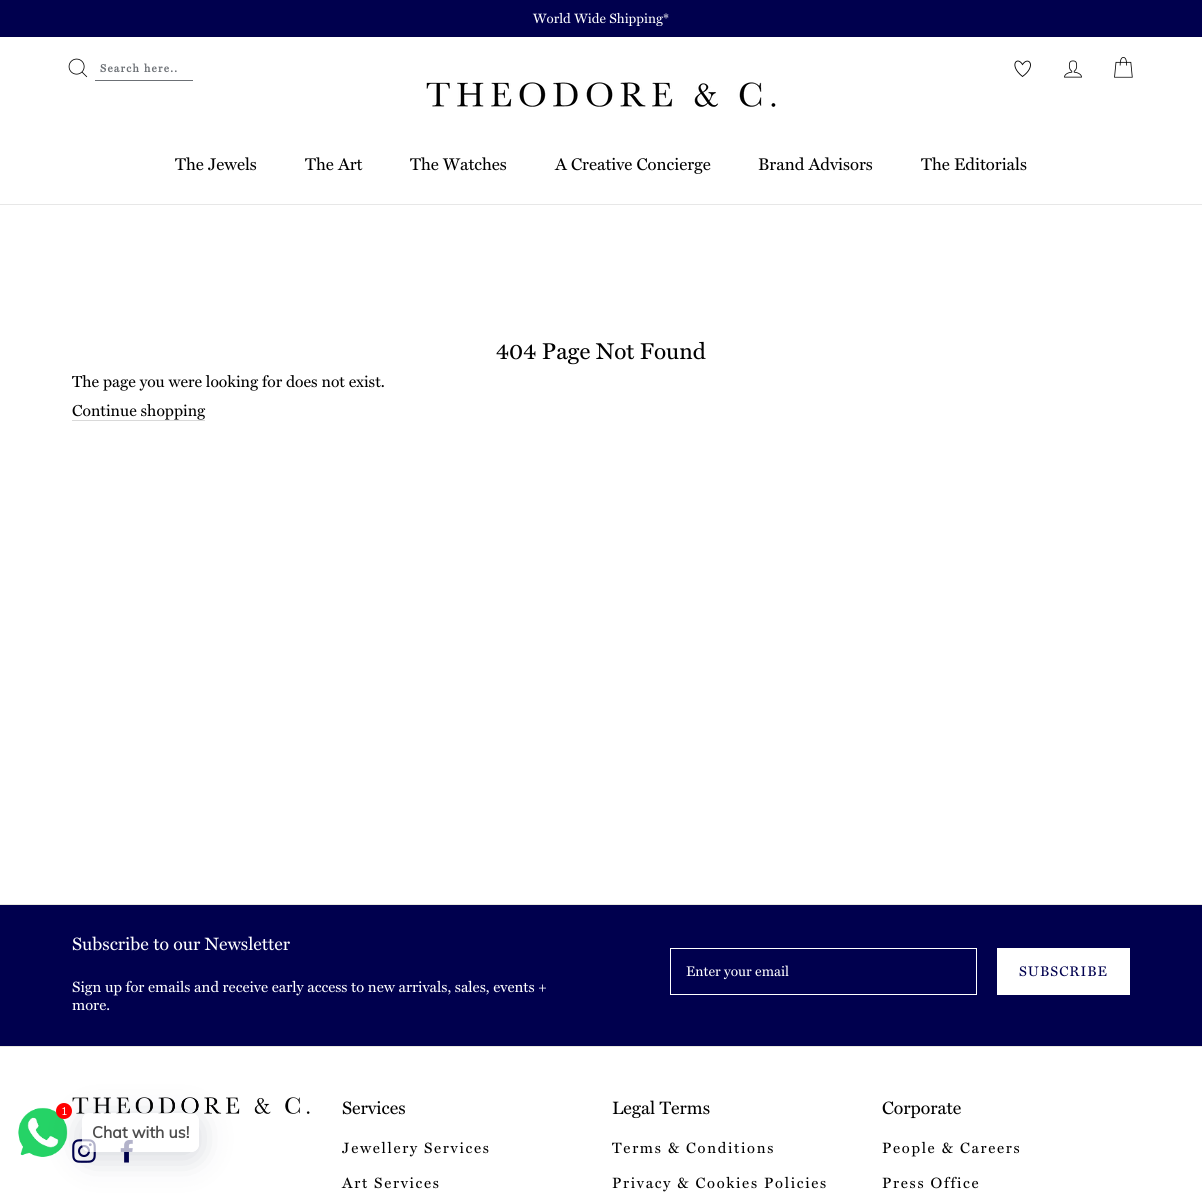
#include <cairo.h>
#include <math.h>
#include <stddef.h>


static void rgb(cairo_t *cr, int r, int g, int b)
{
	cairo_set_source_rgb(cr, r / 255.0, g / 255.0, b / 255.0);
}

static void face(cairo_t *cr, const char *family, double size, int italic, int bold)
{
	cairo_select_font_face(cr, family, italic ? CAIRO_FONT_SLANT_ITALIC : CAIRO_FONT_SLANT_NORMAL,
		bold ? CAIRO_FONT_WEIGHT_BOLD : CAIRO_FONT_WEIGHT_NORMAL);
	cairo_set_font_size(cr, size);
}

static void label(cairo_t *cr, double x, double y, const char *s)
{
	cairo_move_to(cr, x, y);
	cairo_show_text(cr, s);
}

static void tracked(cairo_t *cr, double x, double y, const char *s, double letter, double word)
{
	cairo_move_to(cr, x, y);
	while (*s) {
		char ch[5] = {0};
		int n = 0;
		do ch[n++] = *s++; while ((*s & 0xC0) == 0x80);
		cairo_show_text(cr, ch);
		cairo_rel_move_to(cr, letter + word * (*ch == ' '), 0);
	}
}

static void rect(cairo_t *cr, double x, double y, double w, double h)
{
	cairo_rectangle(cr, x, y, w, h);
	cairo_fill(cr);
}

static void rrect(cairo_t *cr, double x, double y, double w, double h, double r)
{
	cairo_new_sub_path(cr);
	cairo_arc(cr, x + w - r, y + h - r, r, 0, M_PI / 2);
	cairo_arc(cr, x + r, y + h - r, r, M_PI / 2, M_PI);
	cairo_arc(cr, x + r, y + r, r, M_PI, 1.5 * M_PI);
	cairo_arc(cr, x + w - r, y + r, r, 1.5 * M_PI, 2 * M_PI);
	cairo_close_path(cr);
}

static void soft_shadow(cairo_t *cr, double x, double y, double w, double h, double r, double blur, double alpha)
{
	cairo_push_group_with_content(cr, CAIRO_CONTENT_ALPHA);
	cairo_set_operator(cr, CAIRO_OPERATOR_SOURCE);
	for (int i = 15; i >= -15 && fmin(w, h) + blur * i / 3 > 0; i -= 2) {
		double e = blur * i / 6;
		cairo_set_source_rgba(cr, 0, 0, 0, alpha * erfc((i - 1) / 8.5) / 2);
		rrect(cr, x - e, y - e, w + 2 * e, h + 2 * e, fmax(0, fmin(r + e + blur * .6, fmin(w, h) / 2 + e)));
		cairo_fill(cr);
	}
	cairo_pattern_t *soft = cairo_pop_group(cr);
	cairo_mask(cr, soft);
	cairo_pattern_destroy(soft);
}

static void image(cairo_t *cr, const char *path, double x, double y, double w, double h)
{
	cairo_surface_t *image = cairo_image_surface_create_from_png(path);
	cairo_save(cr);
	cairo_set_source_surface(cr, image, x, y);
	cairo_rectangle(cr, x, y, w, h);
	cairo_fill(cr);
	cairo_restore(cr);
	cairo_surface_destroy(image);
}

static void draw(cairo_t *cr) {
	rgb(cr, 255, 255, 255);
	cairo_paint(cr);
	rgb(cr, 0, 0, 78);
	rect(cr, 0, 0, 1202, 37);
	cairo_save(cr);
	cairo_rectangle(cr, 337, 10, 528, 16);
	cairo_clip(cr);
	face(cr, "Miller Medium", 13.6, 0, 0);
	rgb(cr, 255, 255, 255);
	label(cr, 533, 23, "World Wide Shipping*");
	cairo_restore(cr);
	cairo_save(cr);
	cairo_set_fill_rule(cr, CAIRO_FILL_RULE_EVEN_ODD);
	cairo_new_path(cr);
	cairo_move_to(cr, 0, 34);
	cairo_line_to(cr, 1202, 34);
	cairo_line_to(cr, 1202, 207);
	cairo_line_to(cr, 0, 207);
	cairo_close_path(cr);
	cairo_move_to(cr, 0, 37);
	cairo_line_to(cr, 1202, 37);
	cairo_line_to(cr, 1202, 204);
	cairo_line_to(cr, 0, 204);
	cairo_close_path(cr);
	cairo_clip(cr);
	rgb(cr, 0, 0, 0);
	soft_shadow(cr, 0, 37, 1202, 167, 0, 0.5, 0.4);
	cairo_restore(cr);
	image(cr, "image0.png", 68, 58, 20, 20);
	rgb(cr, 108, 112, 117);
	rect(cr, 95, 80, 98, 1);
	face(cr, "Miller", 11, 0, 1);
	tracked(cr, 100, 72, "Search here..", 1.25, 0);
	cairo_new_path(cr);
	cairo_move_to(cr, 1022.5, 76.5);
	cairo_curve_to(cr, 1008.5, 65.5, 1017, 55.5, 1022.5, 64.5);
	cairo_curve_to(cr, 1028.5, 55.5, 1037, 66, 1022.5, 76.5);
	cairo_close_path(cr);
	rgb(cr, 0, 0, 0);
	cairo_set_line_width(cr, 0.9);
	cairo_stroke(cr);
	image(cr, "image1.png", 1064, 60, 18, 18);
	image(cr, "image2.png", 1114, 57, 19, 21);
	image(cr, "image3.png", 426, 82, 350, 25);
	face(cr, "Miller Medium", 17, 0, 0);
	label(cr, 175, 170, "The Jewels");
	label(cr, 305, 170, "The Art");
	label(cr, 410, 170, "The Watches");
	label(cr, 555, 170, "A Creative Concierge");
	label(cr, 758, 170, "Brand Advisors");
	label(cr, 921, 170, "The Editorials");
	face(cr, "Miller Medium", 23, 0, 0);
	label(cr, 496, 359, "404 Page Not Found");
	face(cr, "Miller Medium", 16, 0, 0);
	label(cr, 72, 387, "The page you were looking for does not exist.");
	rgb(cr, 217, 217, 217);
	rect(cr, 72, 420, 133, 1);
	rgb(cr, 0, 0, 0);
	label(cr, 72, 416, "Continue shopping");
	rgb(cr, 0, 0, 78);
	rect(cr, 0, 905, 1202, 141);
	rgb(cr, 232, 232, 225);
	rect(cr, 0, 904, 1202, 1);
	face(cr, "Miller Medium", 18, 0, 0);
	rgb(cr, 255, 255, 255);
	label(cr, 72, 950, "Subscribe to our Newsletter");
	face(cr, "Miller Medium", 15, 0, 0);
	label(cr, 72, 992, "Sign up for emails and receive early access to new arrivals, sales, events +");
	label(cr, 72, 1010, "more.");
	cairo_rectangle(cr, 670.5, 948.5, 306, 46);
	cairo_set_line_width(cr, 1);
	cairo_stroke(cr);
	face(cr, "Miller Medium", 14, 0, 0);
	label(cr, 686, 976, "Enter your email");
	rect(cr, 997, 948, 133, 47);
	rgb(cr, 0, 0, 78);
	tracked(cr, 1019, 976, "SUBSCRIBE", 1, 0);
	rgb(cr, 232, 232, 225);
	rect(cr, 0, 1046, 1202, 1);
	image(cr, "image4.png", 72, 1097, 238, 17);
	image(cr, "image5.png", 72, 1139, 24, 24);
	image(cr, "image6.png", 120, 1139, 13, 24);
	face(cr, "Miller Medium", 18, 0, 0);
	rgb(cr, 0, 0, 0);
	label(cr, 342, 1114, "Services");
	face(cr, "Miller Medium", 15, 0, 0);
	tracked(cr, 342, 1153, "Jewellery Services", 1.7, 0);
	tracked(cr, 342, 1188, "Art Services", 1.7, 0);
	face(cr, "Miller Medium", 18, 0, 0);
	label(cr, 612, 1114, "Legal Terms");
	face(cr, "Miller Medium", 15, 0, 0);
	tracked(cr, 612, 1153, "Terms & Conditions", 1.7, 0);
	tracked(cr, 612, 1188, "Privacy & Cookies Policies", 1.7, 0);
	face(cr, "Miller Medium", 18, 0, 0);
	label(cr, 882, 1114, "Corporate");
	face(cr, "Miller Medium", 15, 0, 0);
	tracked(cr, 882, 1153, "People & Careers", 1.7, 0);
	tracked(cr, 882, 1188, "Press Office", 1.7, 0);
	image(cr, "image7.png", 18, 1107, 50, 50);
	cairo_save(cr);
	cairo_set_fill_rule(cr, CAIRO_FILL_RULE_EVEN_ODD);
	cairo_new_path(cr);
	cairo_move_to(cr, 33, 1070);
	cairo_line_to(cr, 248, 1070);
	cairo_line_to(cr, 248, 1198);
	cairo_line_to(cr, 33, 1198);
	cairo_close_path(cr);
	cairo_move_to(cr, 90, 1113);
	cairo_line_to(cr, 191, 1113);
	cairo_curve_to(cr, 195.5, 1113, 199, 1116.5, 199, 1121);
	cairo_line_to(cr, 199, 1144);
	cairo_curve_to(cr, 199, 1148.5, 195.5, 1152, 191, 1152);
	cairo_line_to(cr, 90, 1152);
	cairo_curve_to(cr, 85.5, 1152, 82, 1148.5, 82, 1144);
	cairo_line_to(cr, 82, 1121);
	cairo_curve_to(cr, 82, 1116.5, 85.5, 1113, 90, 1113);
	cairo_close_path(cr);
	cairo_clip(cr);
	rgb(cr, 0, 18, 46);
	soft_shadow(cr, 82, 1119, 117, 39, 8, 16, 0.17);
	cairo_restore(cr);
	rgb(cr, 255, 0, 0);
	cairo_arc(cr, 64, 1111, 8, 0, 2 * M_PI);
	cairo_fill(cr);
	face(cr, "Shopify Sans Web", 11, 0, 0);
	rgb(cr, 255, 255, 255);
	label(cr, 62, 1115, "1");
	cairo_set_source_rgba(cr, 1, 1, 1, 0.7);
	rrect(cr, 82, 1113, 117, 39, 8);
	cairo_fill(cr);
	face(cr, "Muli", 16, 0, 1);
	rgb(cr, 77, 77, 77);
	label(cr, 92, 1138, "Chat with us!");
}

int main(void) {
	cairo_surface_t *surface = cairo_image_surface_create(CAIRO_FORMAT_RGB24, 1202, 1198);
	cairo_t *cr = cairo_create(surface);
	cairo_font_options_t *options = cairo_font_options_create();
	cairo_font_options_set_hint_metrics(options, CAIRO_HINT_METRICS_OFF);
	cairo_font_options_set_hint_style(options, CAIRO_HINT_STYLE_NONE);
	cairo_set_font_options(cr, options);
	cairo_set_miter_limit(cr, 4);
	draw(cr);
	cairo_surface_write_to_png(surface, "render.png");
	cairo_font_options_destroy(options);
	cairo_destroy(cr);
	cairo_surface_destroy(surface);
	return 0;
}
